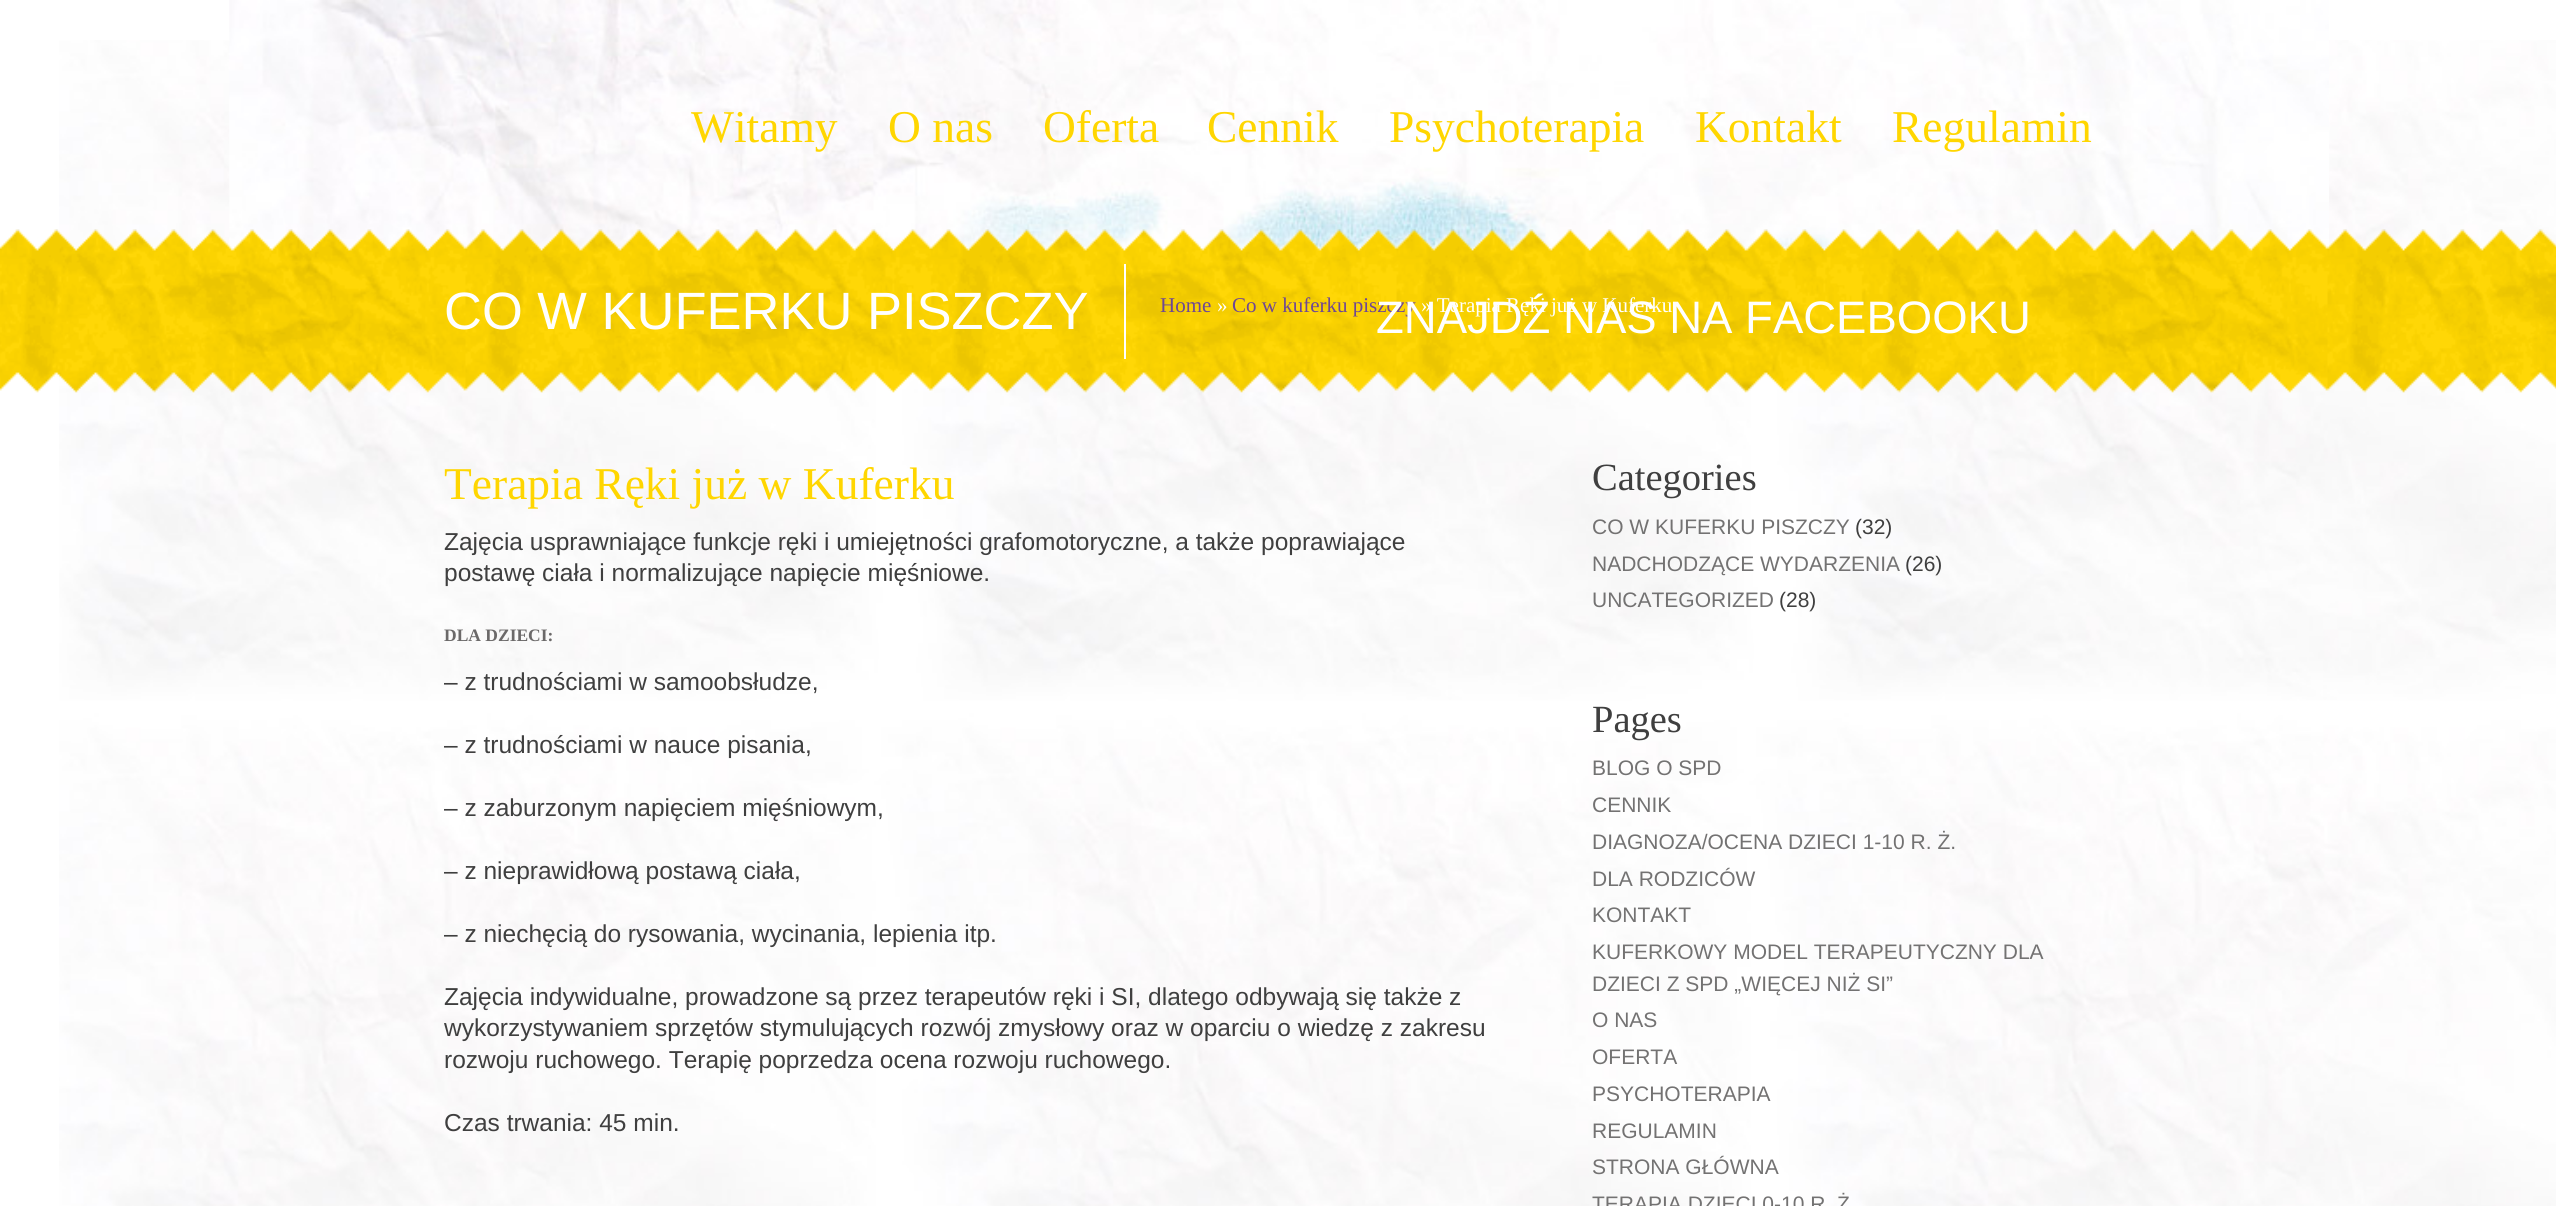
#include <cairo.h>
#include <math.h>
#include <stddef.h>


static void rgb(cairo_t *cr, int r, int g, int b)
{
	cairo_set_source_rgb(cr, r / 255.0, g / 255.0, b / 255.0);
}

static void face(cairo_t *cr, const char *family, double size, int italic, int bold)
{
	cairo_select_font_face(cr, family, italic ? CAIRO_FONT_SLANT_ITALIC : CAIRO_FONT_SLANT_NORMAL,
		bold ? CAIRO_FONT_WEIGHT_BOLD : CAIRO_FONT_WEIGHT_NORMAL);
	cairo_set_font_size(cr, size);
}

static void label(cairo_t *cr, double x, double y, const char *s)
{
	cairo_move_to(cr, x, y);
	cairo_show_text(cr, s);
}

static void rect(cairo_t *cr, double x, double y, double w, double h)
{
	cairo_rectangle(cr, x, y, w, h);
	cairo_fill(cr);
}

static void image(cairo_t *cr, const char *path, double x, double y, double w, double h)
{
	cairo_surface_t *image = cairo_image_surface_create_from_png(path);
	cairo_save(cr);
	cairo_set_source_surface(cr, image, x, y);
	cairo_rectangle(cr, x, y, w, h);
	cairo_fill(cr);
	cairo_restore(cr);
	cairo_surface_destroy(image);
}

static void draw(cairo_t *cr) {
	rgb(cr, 255, 255, 255);
	cairo_paint(cr);
	image(cr, "image0.png", 59, 40, 2497, 1166);
	image(cr, "image1.png", 229, 0, 2100, 251);
	face(cr, "Liberation Serif", 45.5, 0, 0);
	rgb(cr, 255, 214, 0);
	label(cr, 691, 142, "Witamy");
	label(cr, 888, 142, "O nas");
	label(cr, 1043, 142, "Oferta");
	label(cr, 1207, 142, "Cennik");
	label(cr, 1389, 142, "Psychoterapia");
	label(cr, 1695, 142, "Kontakt");
	label(cr, 1892, 142, "Regulamin");
	image(cr, "image2.png", 0, 229, 2556, 164);
	rgb(cr, 255, 255, 255);
	rect(cr, 1124, 264, 2, 95);
	face(cr, "Liberation Sans", 52.5, 0, 0);
	label(cr, 444, 329, "CO W KUFERKU PISZCZY");
	face(cr, "Liberation Serif", 21, 0, 0);
	rgb(cr, 110, 71, 149);
	label(cr, 1160, 312, "Home");
	rgb(cr, 255, 255, 255);
	label(cr, 1217, 312, "»");
	rgb(cr, 110, 71, 149);
	label(cr, 1232, 312, "Co w kuferku piszczy");
	rgb(cr, 255, 255, 255);
	label(cr, 1421, 312, "» Terapia Ręki już w Kuferku");
	face(cr, "Liberation Sans", 45.5, 0, 0);
	label(cr, 1376, 333, "ZNAJDŹ NAS NA FACEBOOKU");
	face(cr, "Liberation Serif", 45.5, 0, 0);
	rgb(cr, 255, 214, 0);
	label(cr, 444, 499, "Terapia Ręki już w Kuferku");
	face(cr, "Liberation Sans", 24.5, 0, 0);
	rgb(cr, 63, 63, 63);
	label(cr, 444, 550, "Zajęcia usprawniające funkcje ręki i umiejętności grafomotoryczne, a także poprawiające");
	label(cr, 444, 581, "postawę ciała i normalizujące napięcie mięśniowe.");
	face(cr, "Liberation Serif", 17.5, 0, 1);
	rgb(cr, 107, 105, 105);
	label(cr, 444, 641, "DLA DZIECI:");
	face(cr, "Liberation Sans", 24.5, 0, 0);
	rgb(cr, 63, 63, 63);
	label(cr, 444, 690, "– z trudnościami w samoobsłudze,");
	label(cr, 444, 753, "– z trudnościami w nauce pisania,");
	label(cr, 444, 816, "– z zaburzonym napięciem mięśniowym,");
	label(cr, 444, 879, "– z nieprawidłową postawą ciała,");
	label(cr, 444, 942, "– z niechęcią do rysowania, wycinania, lepienia itp.");
	label(cr, 444, 1005, "Zajęcia indywidualne, prowadzone są przez terapeutów ręki i SI, dlatego odbywają się także z");
	label(cr, 444, 1036, "wykorzystywaniem sprzętów stymulujących rozwój zmysłowy oraz w oparciu o wiedzę z zakresu");
	label(cr, 444, 1068, "rozwoju ruchowego. Terapię poprzedza ocena rozwoju ruchowego.");
	label(cr, 444, 1131, "Czas trwania: 45 min.");
	face(cr, "Liberation Serif", 38.5, 0, 0);
	label(cr, 1592, 490, "Categories");
	face(cr, "Liberation Sans", 21, 0, 0);
	rgb(cr, 115, 114, 114);
	label(cr, 1592, 534, "CO W KUFERKU PISZCZY");
	rgb(cr, 63, 63, 63);
	label(cr, 1855, 534, "(32)");
	rgb(cr, 115, 114, 114);
	label(cr, 1592, 571, "NADCHODZĄCE WYDARZENIA");
	rgb(cr, 63, 63, 63);
	label(cr, 1905, 571, "(26)");
	rgb(cr, 115, 114, 114);
	label(cr, 1592, 607, "UNCATEGORIZED");
	rgb(cr, 63, 63, 63);
	label(cr, 1779, 607, "(28)");
	face(cr, "Liberation Serif", 38.5, 0, 0);
	label(cr, 1592, 732, "Pages");
	face(cr, "Liberation Sans", 21, 0, 0);
	rgb(cr, 115, 114, 114);
	label(cr, 1592, 775, "BLOG O SPD");
	label(cr, 1592, 812, "CENNIK");
	label(cr, 1592, 849, "DIAGNOZA/OCENA DZIECI 1-10 R. Ż.");
	label(cr, 1592, 886, "DLA RODZICÓW");
	label(cr, 1592, 922, "KONTAKT");
	label(cr, 1592, 959, "KUFERKOWY MODEL TERAPEUTYCZNY DLA");
	label(cr, 1592, 991, "DZIECI Z SPD „WIĘCEJ NIŻ SI”");
	label(cr, 1592, 1027, "O NAS");
	label(cr, 1592, 1064, "OFERTA");
	label(cr, 1592, 1101, "PSYCHOTERAPIA");
	label(cr, 1592, 1138, "REGULAMIN");
	label(cr, 1592, 1174, "STRONA GŁÓWNA");
	label(cr, 1592, 1211, "TERAPIA DZIECI 0-10 R. Ż");
}

int main(void) {
	cairo_surface_t *surface = cairo_image_surface_create(CAIRO_FORMAT_RGB24, 2556, 1206);
	cairo_t *cr = cairo_create(surface);
	cairo_font_options_t *options = cairo_font_options_create();
	cairo_font_options_set_hint_metrics(options, CAIRO_HINT_METRICS_OFF);
	cairo_font_options_set_hint_style(options, CAIRO_HINT_STYLE_NONE);
	cairo_set_font_options(cr, options);
	cairo_set_miter_limit(cr, 4);
	draw(cr);
	cairo_surface_write_to_png(surface, "render.png");
	cairo_font_options_destroy(options);
	cairo_destroy(cr);
	cairo_surface_destroy(surface);
	return 0;
}
